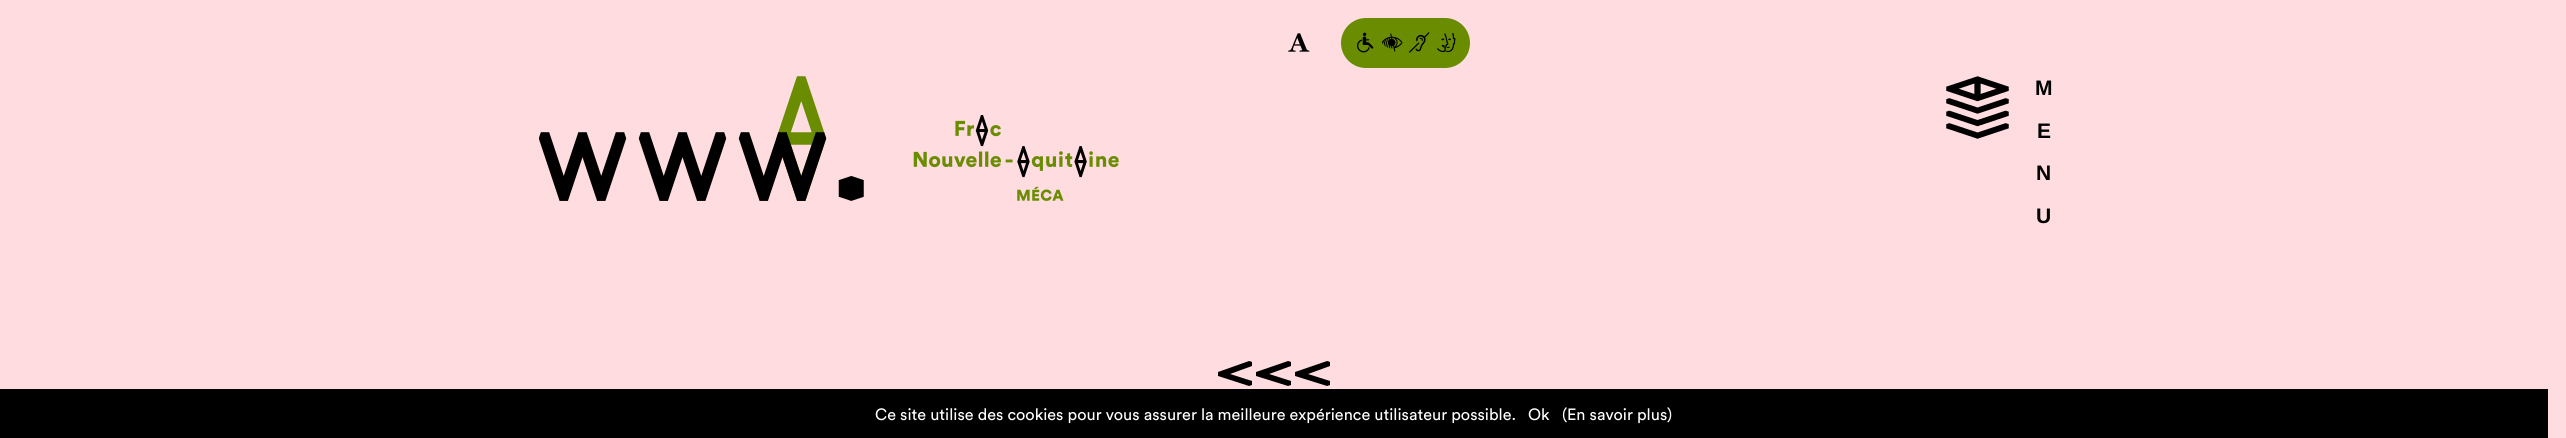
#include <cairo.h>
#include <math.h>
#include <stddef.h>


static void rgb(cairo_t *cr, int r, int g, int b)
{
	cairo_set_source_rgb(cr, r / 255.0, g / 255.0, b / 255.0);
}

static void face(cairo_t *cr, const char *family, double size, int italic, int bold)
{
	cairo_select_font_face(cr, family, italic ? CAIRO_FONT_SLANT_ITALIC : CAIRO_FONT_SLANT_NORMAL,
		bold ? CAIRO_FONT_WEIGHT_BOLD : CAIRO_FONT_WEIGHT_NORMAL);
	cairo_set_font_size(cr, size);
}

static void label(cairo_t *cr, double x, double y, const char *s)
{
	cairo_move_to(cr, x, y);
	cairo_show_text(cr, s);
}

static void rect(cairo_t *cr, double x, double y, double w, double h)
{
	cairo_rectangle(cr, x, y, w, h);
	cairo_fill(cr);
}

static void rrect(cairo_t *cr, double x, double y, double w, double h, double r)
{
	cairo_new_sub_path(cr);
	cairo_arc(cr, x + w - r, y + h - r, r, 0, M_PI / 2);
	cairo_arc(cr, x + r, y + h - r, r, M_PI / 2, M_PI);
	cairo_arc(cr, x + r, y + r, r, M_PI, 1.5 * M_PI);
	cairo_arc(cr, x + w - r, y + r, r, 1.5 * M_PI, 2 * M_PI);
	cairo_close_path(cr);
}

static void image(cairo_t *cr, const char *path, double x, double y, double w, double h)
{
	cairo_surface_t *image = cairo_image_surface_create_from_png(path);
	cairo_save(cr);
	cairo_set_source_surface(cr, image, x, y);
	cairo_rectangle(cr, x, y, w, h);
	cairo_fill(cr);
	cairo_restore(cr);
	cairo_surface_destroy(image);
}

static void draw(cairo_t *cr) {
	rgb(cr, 255, 220, 224);
	cairo_paint(cr);
	image(cr, "image0.png", 1288, 33, 22, 19);
	rgb(cr, 105, 140, 0);
	rrect(cr, 1341, 18, 129, 50, 25);
	cairo_fill(cr);
	image(cr, "image1.png", 1357, 32, 99, 21);
	image(cr, "image2.png", 539, 76, 580, 125);
	image(cr, "image3.png", 1946, 76, 63, 63);
	face(cr, "Liberation Sans", 21, 0, 1);
	rgb(cr, 0, 0, 0);
	label(cr, 2035, 95, "M");
	label(cr, 2037, 138, "E");
	label(cr, 2036, 180, "N");
	label(cr, 2036, 223, "U");
	cairo_new_path(cr);
	cairo_move_to(cr, 1252, 385);
	cairo_line_to(cr, 1252, 381);
	cairo_line_to(cr, 1230, 374);
	cairo_line_to(cr, 1252, 366);
	cairo_line_to(cr, 1252, 362);
	cairo_line_to(cr, 1249, 361);
	cairo_line_to(cr, 1218, 372);
	cairo_line_to(cr, 1218, 376);
	cairo_line_to(cr, 1249, 386);
	cairo_close_path(cr);
	cairo_move_to(cr, 1291, 385);
	cairo_line_to(cr, 1291, 381);
	cairo_line_to(cr, 1269, 374);
	cairo_line_to(cr, 1291, 366);
	cairo_line_to(cr, 1291, 362);
	cairo_line_to(cr, 1288, 361);
	cairo_line_to(cr, 1256, 372);
	cairo_line_to(cr, 1256, 376);
	cairo_line_to(cr, 1288, 386);
	cairo_close_path(cr);
	cairo_move_to(cr, 1330, 385);
	cairo_line_to(cr, 1330, 381);
	cairo_line_to(cr, 1308, 374);
	cairo_line_to(cr, 1330, 366);
	cairo_line_to(cr, 1330, 362);
	cairo_line_to(cr, 1327, 361);
	cairo_line_to(cr, 1295, 372);
	cairo_line_to(cr, 1295, 376);
	cairo_line_to(cr, 1327, 386);
	cairo_close_path(cr);
	cairo_fill(cr);
	rect(cr, 0, 389, 2548, 49);
	face(cr, "Circular", 16.25, 0, 0);
	rgb(cr, 255, 255, 255);
	label(cr, 875, 420, "Ce site utilise des cookies pour vous assurer la meilleure expérience utilisateur possible.");
	label(cr, 1528, 420, "Ok");
	label(cr, 1562, 420, "(En savoir plus)");
}

int main(void) {
	cairo_surface_t *surface = cairo_image_surface_create(CAIRO_FORMAT_RGB24, 2566, 438);
	cairo_t *cr = cairo_create(surface);
	cairo_font_options_t *options = cairo_font_options_create();
	cairo_font_options_set_hint_metrics(options, CAIRO_HINT_METRICS_OFF);
	cairo_font_options_set_hint_style(options, CAIRO_HINT_STYLE_NONE);
	cairo_set_font_options(cr, options);
	cairo_set_miter_limit(cr, 4);
	draw(cr);
	cairo_surface_write_to_png(surface, "render.png");
	cairo_font_options_destroy(options);
	cairo_destroy(cr);
	cairo_surface_destroy(surface);
	return 0;
}
